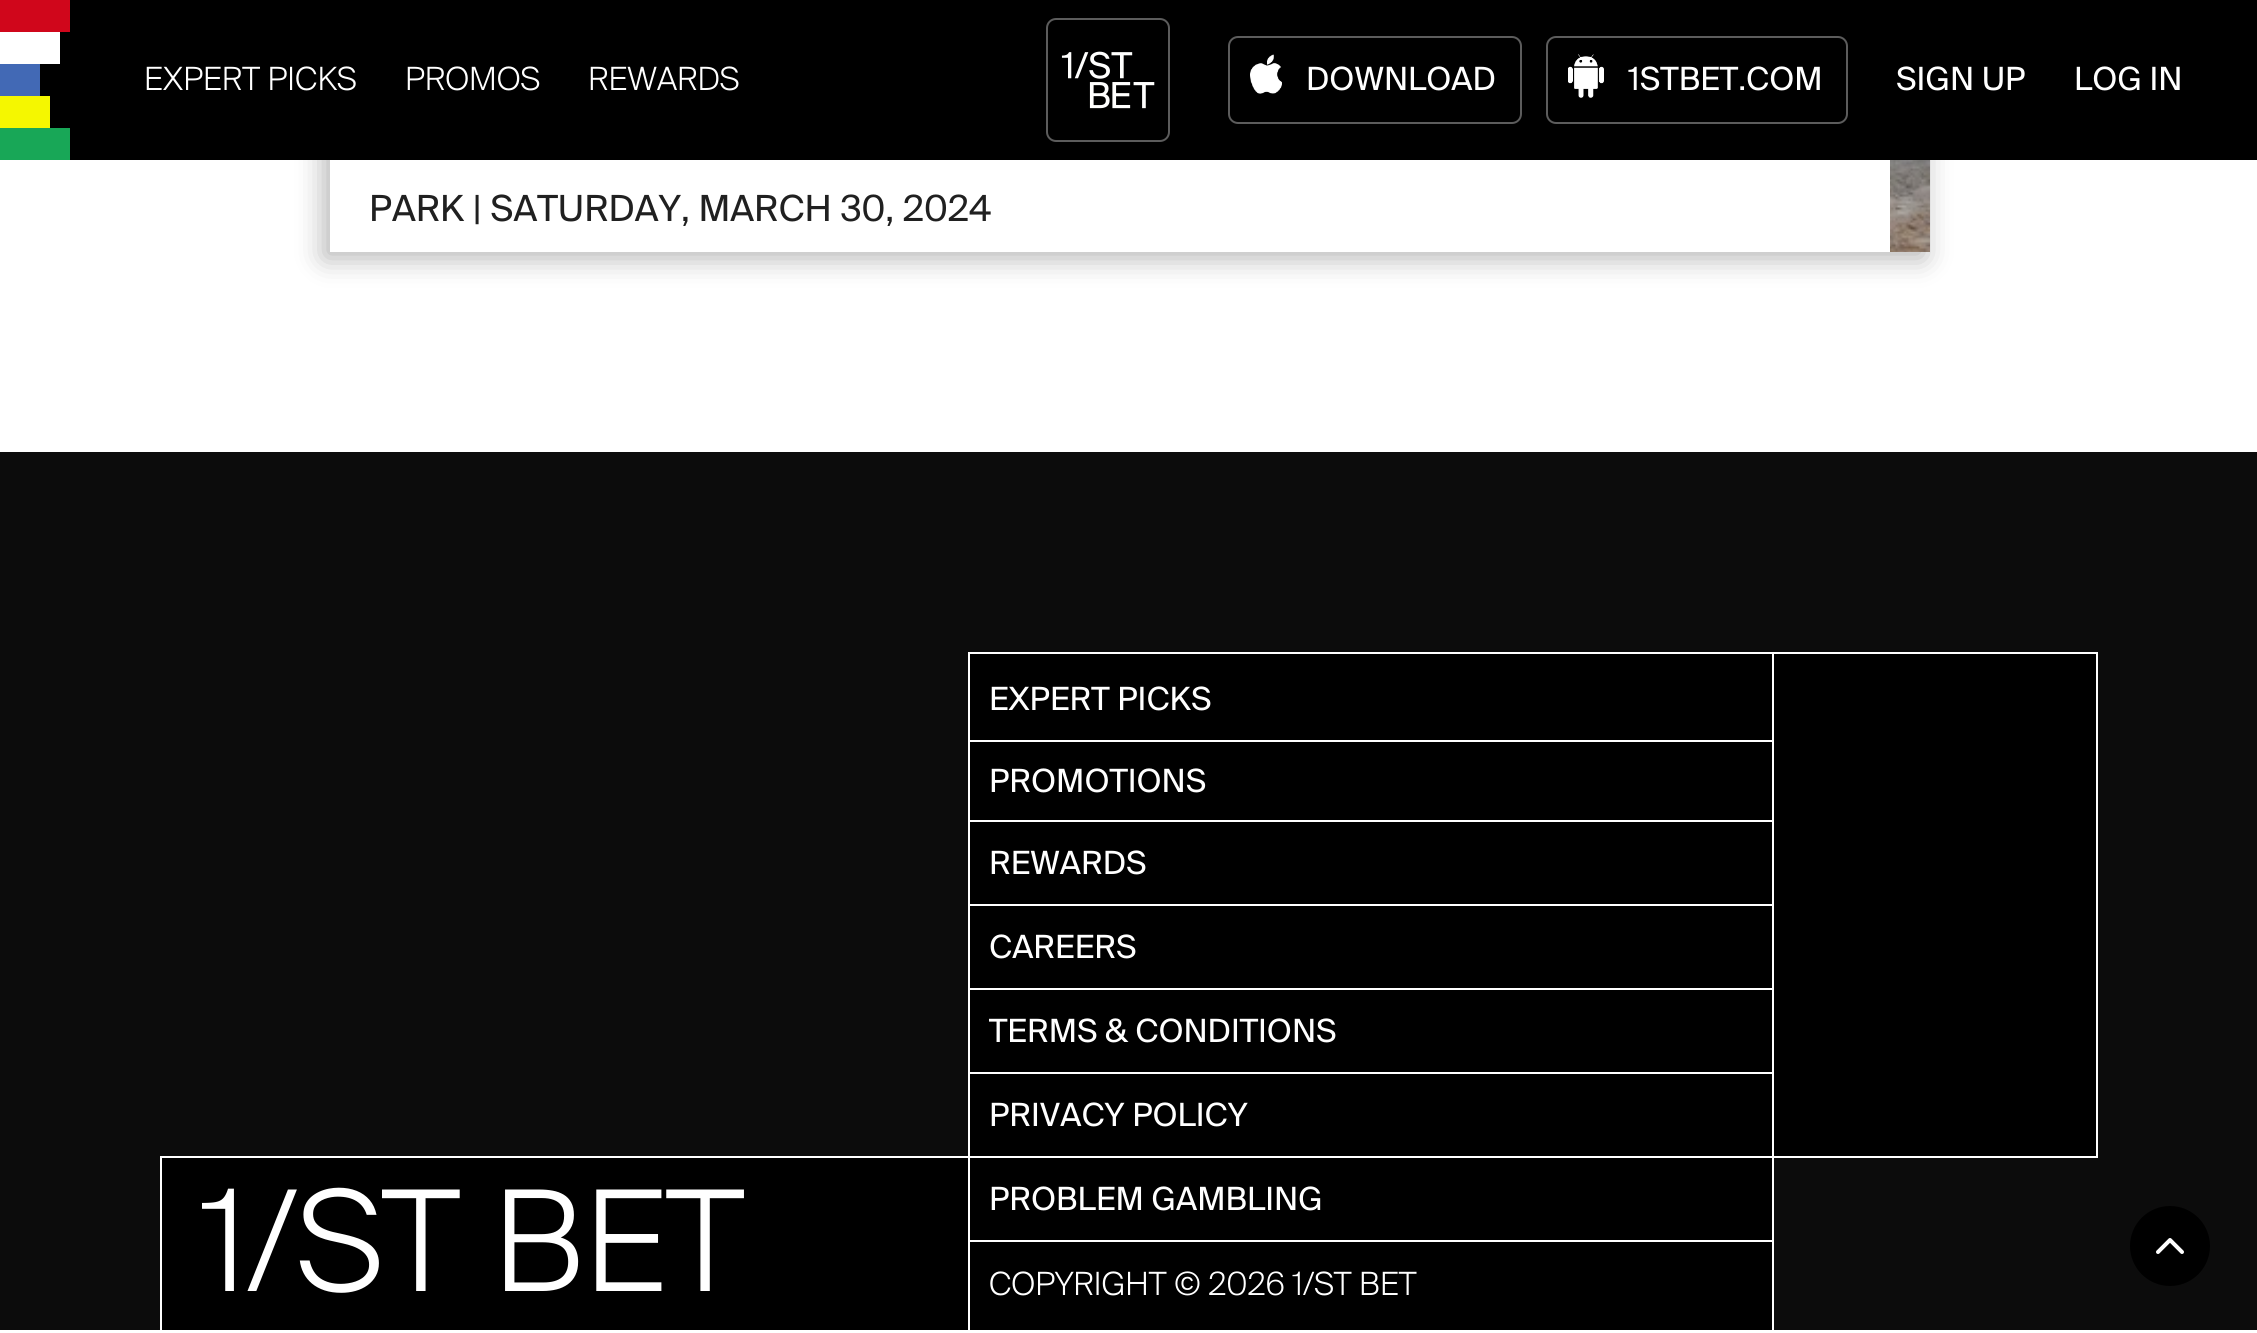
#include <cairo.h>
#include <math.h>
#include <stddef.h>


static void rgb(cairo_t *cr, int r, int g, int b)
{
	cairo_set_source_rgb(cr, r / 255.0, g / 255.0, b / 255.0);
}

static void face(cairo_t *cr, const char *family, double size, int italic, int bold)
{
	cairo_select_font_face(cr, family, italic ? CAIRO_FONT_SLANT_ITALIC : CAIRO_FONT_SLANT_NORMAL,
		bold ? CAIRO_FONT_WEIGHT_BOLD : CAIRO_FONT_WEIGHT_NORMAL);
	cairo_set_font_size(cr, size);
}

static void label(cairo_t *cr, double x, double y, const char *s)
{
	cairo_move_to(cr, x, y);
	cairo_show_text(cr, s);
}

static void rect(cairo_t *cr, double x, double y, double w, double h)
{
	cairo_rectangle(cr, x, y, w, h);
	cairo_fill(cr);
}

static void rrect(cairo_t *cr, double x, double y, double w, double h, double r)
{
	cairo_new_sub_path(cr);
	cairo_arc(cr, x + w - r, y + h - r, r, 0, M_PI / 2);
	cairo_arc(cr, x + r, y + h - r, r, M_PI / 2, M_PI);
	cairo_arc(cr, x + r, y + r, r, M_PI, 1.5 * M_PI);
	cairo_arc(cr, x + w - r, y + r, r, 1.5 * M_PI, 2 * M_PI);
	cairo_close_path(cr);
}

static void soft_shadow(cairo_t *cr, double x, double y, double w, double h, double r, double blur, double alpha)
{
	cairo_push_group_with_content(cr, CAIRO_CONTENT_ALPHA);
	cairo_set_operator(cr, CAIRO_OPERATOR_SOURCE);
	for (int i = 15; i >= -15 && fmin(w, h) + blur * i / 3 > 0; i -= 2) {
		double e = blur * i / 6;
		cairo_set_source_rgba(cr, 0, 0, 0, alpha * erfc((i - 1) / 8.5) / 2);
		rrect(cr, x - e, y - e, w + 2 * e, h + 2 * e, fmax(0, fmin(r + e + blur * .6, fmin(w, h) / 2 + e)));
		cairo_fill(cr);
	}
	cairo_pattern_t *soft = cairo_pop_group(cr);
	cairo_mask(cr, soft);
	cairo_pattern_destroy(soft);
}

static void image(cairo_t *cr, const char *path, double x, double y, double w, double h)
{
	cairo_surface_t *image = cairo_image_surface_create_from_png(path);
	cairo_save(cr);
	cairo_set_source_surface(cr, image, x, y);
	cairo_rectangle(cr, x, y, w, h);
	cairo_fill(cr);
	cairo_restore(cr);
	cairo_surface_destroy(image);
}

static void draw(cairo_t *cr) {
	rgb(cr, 255, 255, 255);
	cairo_paint(cr);
	image(cr, "image3.png", 1890, 160, 40, 92);
	cairo_save(cr);
	cairo_set_fill_rule(cr, CAIRO_FILL_RULE_EVEN_ODD);
	cairo_new_path(cr);
	cairo_move_to(cr, 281, 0);
	cairo_line_to(cr, 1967, 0);
	cairo_line_to(cr, 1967, 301);
	cairo_line_to(cr, 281, 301);
	cairo_close_path(cr);
	cairo_move_to(cr, 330, -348);
	cairo_line_to(cr, 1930, -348);
	cairo_line_to(cr, 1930, 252);
	cairo_line_to(cr, 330, 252);
	cairo_close_path(cr);
	cairo_clip(cr);
	rgb(cr, 0, 0, 0);
	soft_shadow(cr, 324, -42, 1600, 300, 0, 14, 0.3);
	cairo_restore(cr);
	rgb(cr, 0, 0, 0);
	rect(cr, 40, 0, 2217, 160);
	rgb(cr, 208, 6, 27);
	rect(cr, 0, 0, 70, 32);
	rgb(cr, 255, 255, 255);
	rect(cr, 40, 32, 20, 32);
	rgb(cr, 66, 105, 181);
	rect(cr, 0, 64, 40, 32);
	rgb(cr, 245, 247, 0);
	rect(cr, 0, 96, 50, 32);
	rgb(cr, 24, 167, 87);
	rect(cr, 0, 128, 70, 32);
	face(cr, "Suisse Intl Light", 32, 0, 0);
	rgb(cr, 255, 255, 255);
	label(cr, 144, 90, "EXPERT PICKS");
	label(cr, 405, 90, "PROMOS");
	label(cr, 588, 90, "REWARDS");
	rrect(cr, 1047, 19, 122, 122, 9);
	rgb(cr, 92, 92, 92);
	cairo_stroke(cr);
	image(cr, "image0.png", 1061, 51, 94, 58);
	rrect(cr, 1229, 37, 292, 86, 9);
	cairo_stroke(cr);
	image(cr, "image1.png", 1250, 54, 32, 40);
	face(cr, "Suisse Intl", 32, 0, 0);
	rgb(cr, 255, 255, 255);
	label(cr, 1306, 90, "DOWNLOAD");
	rrect(cr, 1547, 37, 300, 86, 9);
	rgb(cr, 92, 92, 92);
	cairo_stroke(cr);
	image(cr, "image2.png", 1568, 54, 36, 44);
	rgb(cr, 255, 255, 255);
	label(cr, 1628, 90, "1STBET.COM");
	label(cr, 1896, 90, "SIGN UP");
	label(cr, 2074, 90, "LOG IN");
	face(cr, "Suisse Intl", 36, 0, 0);
	rgb(cr, 32, 32, 32);
	label(cr, 369, 221, "PARK | SATURDAY, MARCH 30, 2024");
	rgb(cr, 12, 12, 12);
	rect(cr, 0, 452, 2257, 878);
	rgb(cr, 0, 0, 0);
	rect(cr, 162, 1158, 806, 172);
	rgb(cr, 255, 255, 255);
	rect(cr, 160, 1156, 808, 2);
	rect(cr, 160, 1156, 2, 174);
	face(cr, "Suisse Intl Light", 140, 0, 0);
	label(cr, 202, 1291, "1/ST BET");
	rgb(cr, 0, 0, 0);
	rect(cr, 970, 654, 802, 676);
	rgb(cr, 255, 255, 255);
	rect(cr, 968, 652, 1130, 2);
	rect(cr, 1772, 652, 2, 678);
	rect(cr, 968, 652, 2, 678);
	rect(cr, 970, 740, 802, 2);
	face(cr, "Suisse Intl", 32, 0, 0);
	label(cr, 989, 710, "EXPERT PICKS");
	rect(cr, 970, 820, 802, 2);
	label(cr, 989, 792, "PROMOTIONS");
	rect(cr, 970, 904, 802, 2);
	label(cr, 989, 874, "REWARDS");
	rect(cr, 970, 988, 802, 2);
	label(cr, 989, 958, "CAREERS");
	rect(cr, 970, 1072, 802, 2);
	label(cr, 989, 1042, "TERMS & CONDITIONS");
	rect(cr, 970, 1156, 802, 2);
	label(cr, 989, 1126, "PRIVACY POLICY");
	rect(cr, 970, 1240, 802, 2);
	label(cr, 989, 1210, "PROBLEM GAMBLING");
	face(cr, "Suisse Intl Light", 32, 0, 0);
	label(cr, 989, 1295, "COPYRIGHT © 2026 1/ST BET");
	rgb(cr, 0, 0, 0);
	rect(cr, 1774, 654, 322, 502);
	rgb(cr, 255, 255, 255);
	rect(cr, 2096, 652, 2, 506);
	rect(cr, 1774, 1156, 324, 2);
	rgb(cr, 0, 0, 0);
	cairo_new_path(cr);
	cairo_arc(cr, 2170, 1246, 40, 0, 2 * M_PI);
	cairo_fill(cr);
	cairo_new_path(cr);
	cairo_move_to(cr, 2182, 1252);
	cairo_line_to(cr, 2170, 1240);
	cairo_line_to(cr, 2158, 1252);
	rgb(cr, 255, 255, 255);
	cairo_set_line_width(cr, 4);
	cairo_set_line_cap(cr, CAIRO_LINE_CAP_ROUND);
	cairo_set_line_join(cr, CAIRO_LINE_JOIN_ROUND);
	cairo_stroke(cr);
}

int main(void) {
	cairo_surface_t *surface = cairo_image_surface_create(CAIRO_FORMAT_RGB24, 2257, 1333);
	cairo_t *cr = cairo_create(surface);
	cairo_font_options_t *options = cairo_font_options_create();
	cairo_font_options_set_hint_metrics(options, CAIRO_HINT_METRICS_OFF);
	cairo_font_options_set_hint_style(options, CAIRO_HINT_STYLE_NONE);
	cairo_set_font_options(cr, options);
	cairo_set_miter_limit(cr, 4);
	draw(cr);
	cairo_surface_write_to_png(surface, "render.png");
	cairo_font_options_destroy(options);
	cairo_destroy(cr);
	cairo_surface_destroy(surface);
	return 0;
}
